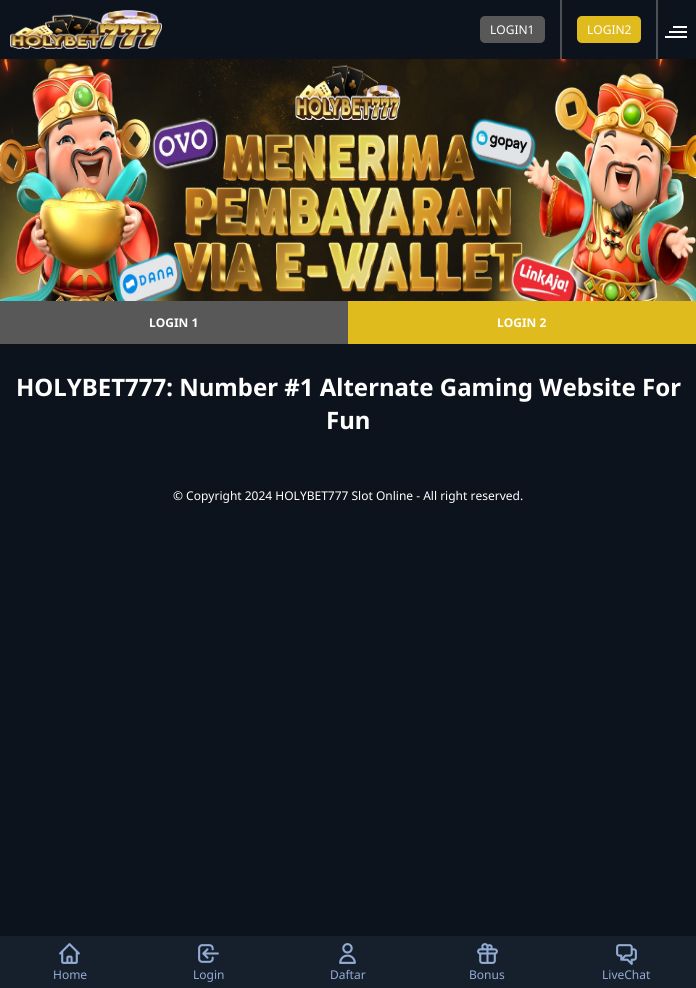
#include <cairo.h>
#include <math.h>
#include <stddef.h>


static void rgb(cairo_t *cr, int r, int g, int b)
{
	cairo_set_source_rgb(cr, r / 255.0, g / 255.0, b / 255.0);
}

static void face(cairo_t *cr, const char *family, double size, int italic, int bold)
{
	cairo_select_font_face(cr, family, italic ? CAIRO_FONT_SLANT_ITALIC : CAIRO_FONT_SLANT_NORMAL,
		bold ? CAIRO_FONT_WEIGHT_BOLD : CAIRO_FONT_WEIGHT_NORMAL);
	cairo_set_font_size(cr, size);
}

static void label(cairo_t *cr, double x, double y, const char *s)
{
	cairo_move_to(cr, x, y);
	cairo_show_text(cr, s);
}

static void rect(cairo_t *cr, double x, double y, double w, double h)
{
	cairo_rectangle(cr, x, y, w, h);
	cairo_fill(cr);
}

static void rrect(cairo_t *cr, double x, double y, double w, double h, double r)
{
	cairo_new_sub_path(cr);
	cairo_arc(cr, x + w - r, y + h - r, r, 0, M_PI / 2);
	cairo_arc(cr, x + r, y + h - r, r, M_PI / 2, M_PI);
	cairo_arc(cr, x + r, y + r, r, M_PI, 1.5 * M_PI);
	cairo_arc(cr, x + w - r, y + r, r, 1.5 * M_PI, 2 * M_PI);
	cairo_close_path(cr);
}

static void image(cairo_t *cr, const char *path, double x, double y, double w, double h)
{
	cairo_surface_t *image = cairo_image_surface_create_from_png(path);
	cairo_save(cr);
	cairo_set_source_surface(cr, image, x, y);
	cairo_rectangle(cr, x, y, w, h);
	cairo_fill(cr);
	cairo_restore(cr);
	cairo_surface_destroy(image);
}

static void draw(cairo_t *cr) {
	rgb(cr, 13, 19, 28);
	cairo_paint(cr);
	image(cr, "image0.png", 10, 10, 152, 39);
	rgb(cr, 77, 80, 84);
	rect(cr, 560, 0, 2, 59);
	rgb(cr, 88, 88, 88);
	rrect(cr, 480, 16, 65, 27, 5);
	cairo_fill(cr);
	face(cr, "Noto Sans", 12, 0, 0);
	rgb(cr, 255, 255, 255);
	label(cr, 490, 34, "LOGIN1");
	rgb(cr, 77, 80, 84);
	rect(cr, 656, 0, 2, 59);
	rgb(cr, 223, 187, 29);
	rrect(cr, 577, 16, 64, 27, 5);
	cairo_fill(cr);
	rgb(cr, 255, 255, 255);
	label(cr, 587, 34, "LOGIN2");
	rect(cr, 669, 31, 18, 2);
	rect(cr, 673, 26, 14, 2);
	rect(cr, 665, 36, 22, 2);
	image(cr, "image1.png", 0, 59, 696, 242);
	rgb(cr, 88, 88, 88);
	rect(cr, 0, 301, 348, 43);
	face(cr, "Noto Sans", 12, 0, 1);
	rgb(cr, 255, 255, 255);
	label(cr, 149, 327, "LOGIN 1");
	rgb(cr, 223, 187, 29);
	rect(cr, 348, 301, 348, 43);
	rgb(cr, 255, 255, 255);
	label(cr, 497, 327, "LOGIN 2");
	face(cr, "Noto Sans", 24, 0, 1);
	label(cr, 16, 396, "HOLYBET777: Number #1 Alternate Gaming Website For");
	label(cr, 326, 429, "Fun");
	face(cr, "Noto Sans", 12, 0, 0);
	label(cr, 173, 500, "© Copyright 2024 HOLYBET777 Slot Online - All right reserved.");
	rgb(cr, 22, 31, 44);
	rect(cr, 0, 936, 696, 52);
	image(cr, "image2.png", 59, 943, 21, 21);
	rgb(cr, 147, 172, 211);
	label(cr, 53, 979, "Home");
	image(cr, "image3.png", 198, 944, 21, 19);
	label(cr, 193, 979, "Login");
	image(cr, "image4.png", 339, 943, 17, 21);
	label(cr, 330, 979, "Daftar");
	image(cr, "image5.png", 477, 943, 21, 21);
	label(cr, 469, 979, "Bonus");
	image(cr, "image6.png", 616, 944, 21, 21);
	label(cr, 602, 979, "LiveChat");
}

int main(void) {
	cairo_surface_t *surface = cairo_image_surface_create(CAIRO_FORMAT_RGB24, 696, 988);
	cairo_t *cr = cairo_create(surface);
	cairo_font_options_t *options = cairo_font_options_create();
	cairo_font_options_set_hint_metrics(options, CAIRO_HINT_METRICS_OFF);
	cairo_font_options_set_hint_style(options, CAIRO_HINT_STYLE_NONE);
	cairo_set_font_options(cr, options);
	cairo_set_miter_limit(cr, 4);
	draw(cr);
	cairo_surface_write_to_png(surface, "render.png");
	cairo_font_options_destroy(options);
	cairo_destroy(cr);
	cairo_surface_destroy(surface);
	return 0;
}
